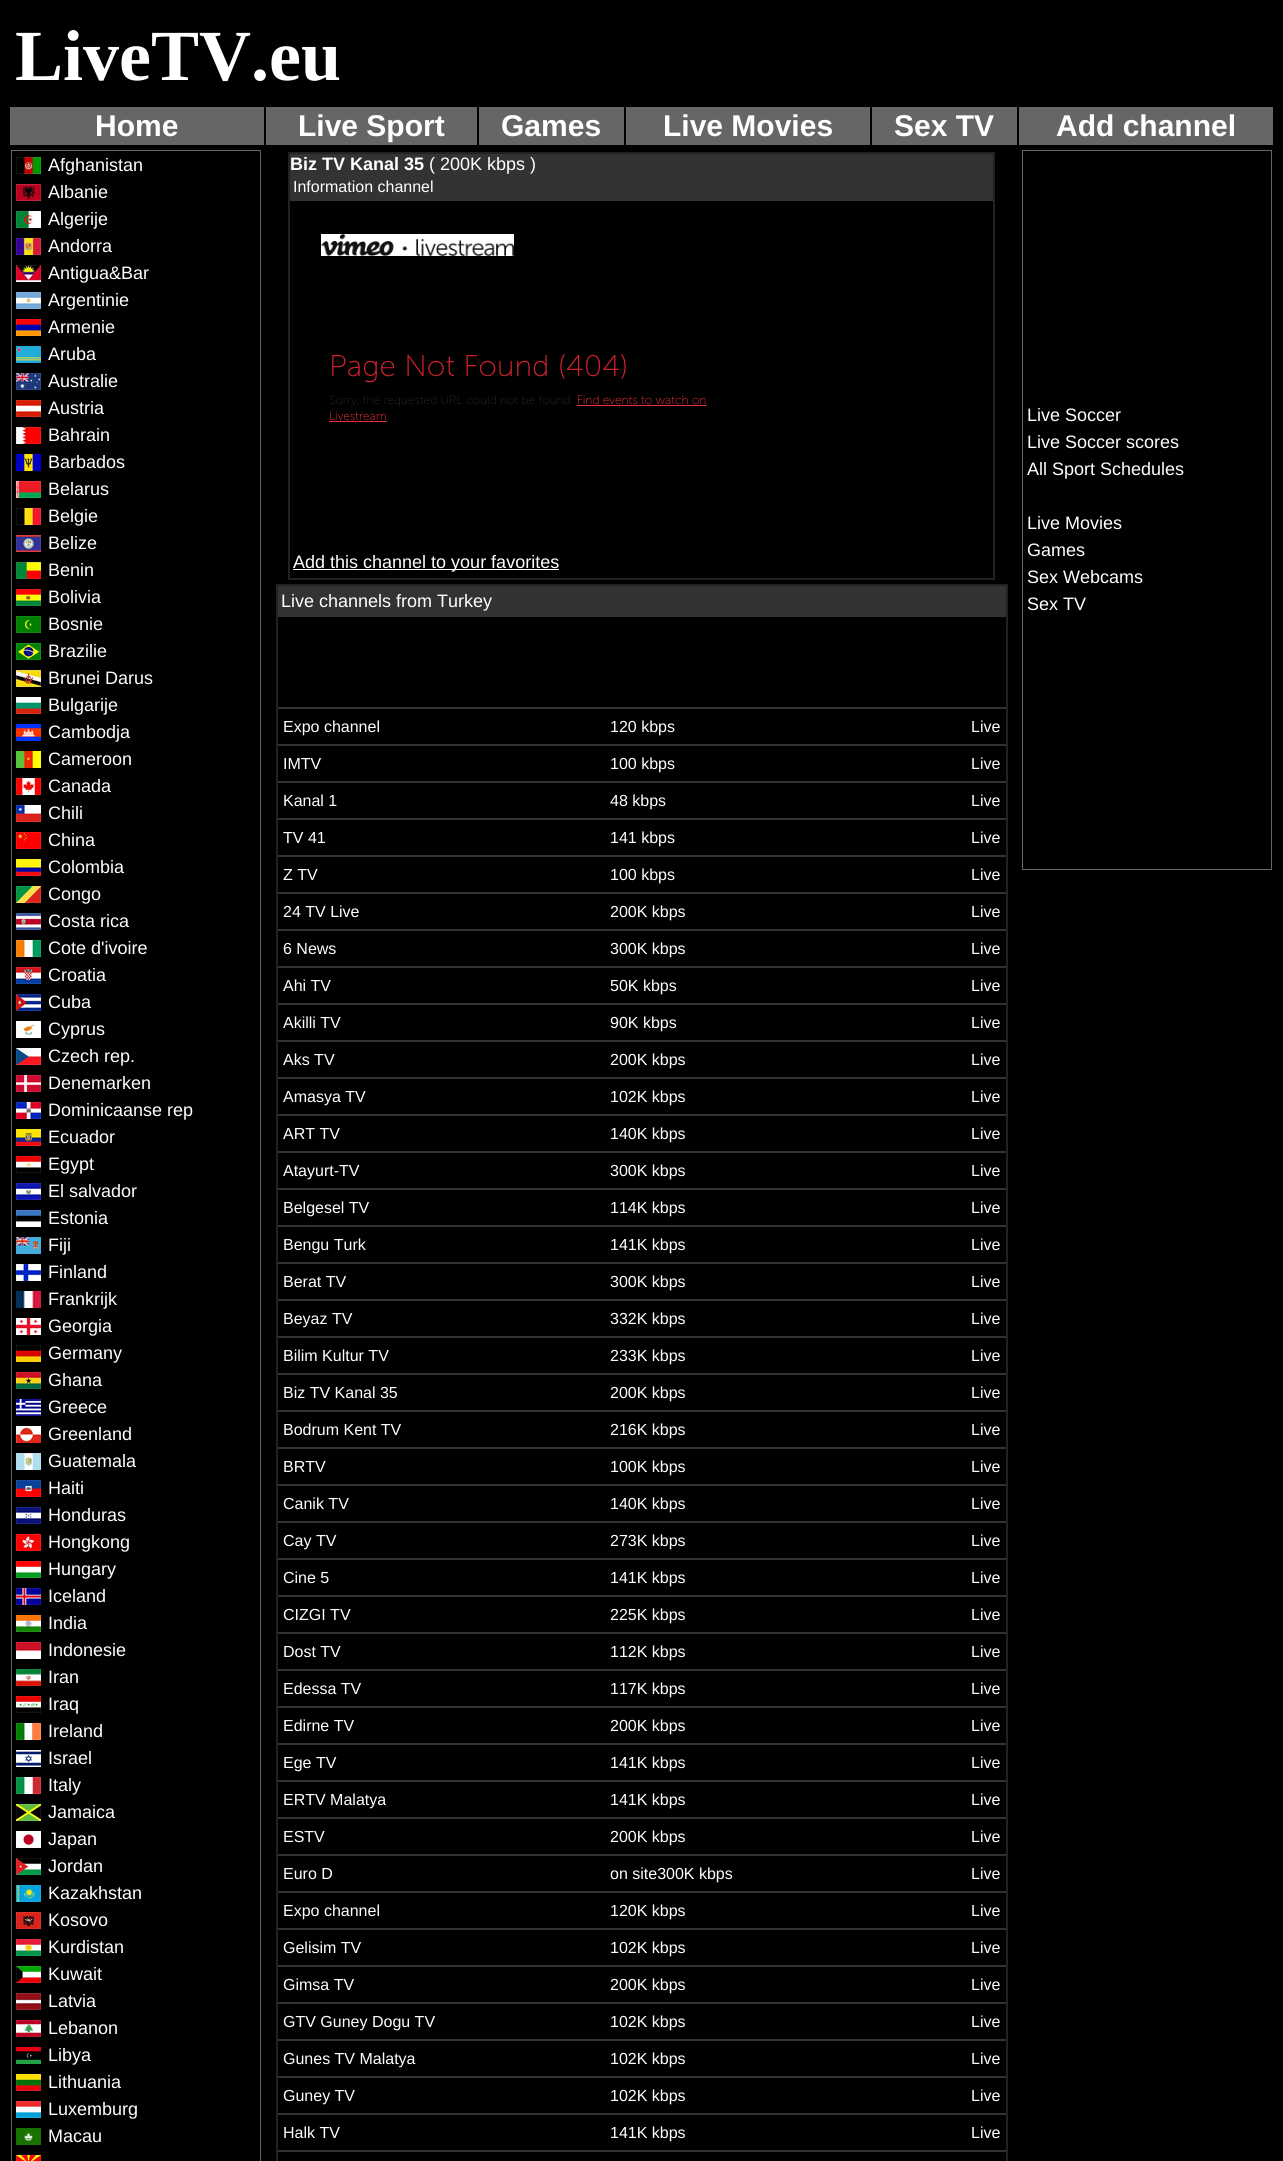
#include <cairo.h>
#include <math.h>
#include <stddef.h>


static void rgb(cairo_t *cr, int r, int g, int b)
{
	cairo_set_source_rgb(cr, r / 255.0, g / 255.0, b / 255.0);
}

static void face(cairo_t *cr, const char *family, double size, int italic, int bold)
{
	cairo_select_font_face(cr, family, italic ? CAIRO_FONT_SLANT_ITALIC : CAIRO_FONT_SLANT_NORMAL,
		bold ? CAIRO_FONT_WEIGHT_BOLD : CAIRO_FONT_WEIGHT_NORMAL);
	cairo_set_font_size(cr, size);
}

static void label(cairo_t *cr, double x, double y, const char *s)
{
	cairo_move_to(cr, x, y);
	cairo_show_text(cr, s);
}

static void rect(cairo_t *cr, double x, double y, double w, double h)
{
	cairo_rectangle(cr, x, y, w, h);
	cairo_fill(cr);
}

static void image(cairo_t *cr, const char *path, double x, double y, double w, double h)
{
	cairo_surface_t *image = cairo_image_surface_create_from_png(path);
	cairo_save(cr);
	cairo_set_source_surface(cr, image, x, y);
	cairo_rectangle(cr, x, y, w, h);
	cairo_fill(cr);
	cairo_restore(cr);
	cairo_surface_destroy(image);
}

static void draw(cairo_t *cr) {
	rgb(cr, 0, 0, 0);
	cairo_paint(cr);
	face(cr, "Liberation Serif", 72, 0, 1);
	rgb(cr, 255, 255, 255);
	label(cr, 15, 80, "LiveTV.eu");
	rgb(cr, 102, 102, 102);
	rect(cr, 10, 107, 254, 38);
	face(cr, "Liberation Sans", 30, 0, 1);
	rgb(cr, 255, 255, 255);
	label(cr, 95, 136, "Home");
	rgb(cr, 102, 102, 102);
	rect(cr, 266, 107, 211, 38);
	rgb(cr, 255, 255, 255);
	label(cr, 298, 136, "Live Sport");
	rgb(cr, 102, 102, 102);
	rect(cr, 479, 107, 145, 38);
	rgb(cr, 255, 255, 255);
	label(cr, 501, 136, "Games");
	rgb(cr, 102, 102, 102);
	rect(cr, 626, 107, 244, 38);
	rgb(cr, 255, 255, 255);
	label(cr, 663, 136, "Live Movies");
	rgb(cr, 102, 102, 102);
	rect(cr, 872, 107, 145, 38);
	rgb(cr, 255, 255, 255);
	label(cr, 894, 136, "Sex TV");
	rgb(cr, 102, 102, 102);
	rect(cr, 1019, 107, 254, 38);
	rgb(cr, 255, 255, 255);
	label(cr, 1056, 136, "Add channel");
	cairo_rectangle(cr, 11.5, 150.5, 249, 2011);
	rgb(cr, 102, 102, 102);
	cairo_set_line_width(cr, 1);
	cairo_stroke(cr);
	image(cr, "image0.png", 16, 157, 25, 17);
	face(cr, "Liberation Sans", 18, 0, 0);
	rgb(cr, 255, 255, 255);
	label(cr, 48, 171, "Afghanistan");
	image(cr, "image1.png", 16, 184, 25, 17);
	label(cr, 48, 198, "Albanie");
	image(cr, "image2.png", 16, 211, 25, 17);
	label(cr, 48, 225, "Algerije");
	image(cr, "image3.png", 16, 238, 25, 17);
	label(cr, 48, 252, "Andorra");
	image(cr, "image4.png", 16, 265, 25, 17);
	label(cr, 48, 279, "Antigua&Bar");
	image(cr, "image5.png", 16, 292, 25, 17);
	label(cr, 48, 306, "Argentinie");
	image(cr, "image6.png", 16, 319, 25, 17);
	label(cr, 48, 333, "Armenie");
	image(cr, "image7.png", 16, 346, 25, 17);
	label(cr, 48, 360, "Aruba");
	image(cr, "image8.png", 16, 373, 25, 17);
	label(cr, 48, 387, "Australie");
	image(cr, "image9.png", 16, 400, 25, 17);
	label(cr, 48, 414, "Austria");
	image(cr, "image10.png", 16, 427, 25, 17);
	label(cr, 48, 441, "Bahrain");
	image(cr, "image11.png", 16, 454, 25, 17);
	label(cr, 48, 468, "Barbados");
	image(cr, "image12.png", 16, 481, 25, 17);
	label(cr, 48, 495, "Belarus");
	image(cr, "image13.png", 16, 508, 25, 17);
	label(cr, 48, 522, "Belgie");
	image(cr, "image14.png", 16, 535, 25, 17);
	label(cr, 48, 549, "Belize");
	image(cr, "image15.png", 16, 562, 25, 17);
	label(cr, 48, 576, "Benin");
	image(cr, "image16.png", 16, 589, 25, 17);
	label(cr, 48, 603, "Bolivia");
	image(cr, "image17.png", 16, 616, 25, 17);
	label(cr, 48, 630, "Bosnie");
	image(cr, "image18.png", 16, 643, 25, 17);
	label(cr, 48, 657, "Brazilie");
	image(cr, "image19.png", 16, 670, 25, 17);
	label(cr, 48, 684, "Brunei Darus");
	image(cr, "image20.png", 16, 697, 25, 17);
	label(cr, 48, 711, "Bulgarije");
	image(cr, "image21.png", 16, 724, 25, 17);
	label(cr, 48, 738, "Cambodja");
	image(cr, "image22.png", 16, 751, 25, 17);
	label(cr, 48, 765, "Cameroon");
	image(cr, "image23.png", 16, 778, 25, 17);
	label(cr, 48, 792, "Canada");
	image(cr, "image24.png", 16, 805, 25, 17);
	label(cr, 48, 819, "Chili");
	image(cr, "image25.png", 16, 832, 25, 17);
	label(cr, 48, 846, "China");
	image(cr, "image26.png", 16, 859, 25, 17);
	label(cr, 48, 873, "Colombia");
	image(cr, "image27.png", 16, 886, 25, 17);
	label(cr, 48, 900, "Congo");
	image(cr, "image28.png", 16, 913, 25, 17);
	label(cr, 48, 927, "Costa rica");
	image(cr, "image29.png", 16, 940, 25, 17);
	label(cr, 48, 954, "Cote d'ivoire");
	image(cr, "image30.png", 16, 967, 25, 17);
	label(cr, 48, 981, "Croatia");
	image(cr, "image31.png", 16, 994, 25, 17);
	label(cr, 48, 1008, "Cuba");
	image(cr, "image32.png", 16, 1021, 25, 17);
	label(cr, 48, 1035, "Cyprus");
	image(cr, "image33.png", 16, 1048, 25, 17);
	label(cr, 48, 1062, "Czech rep.");
	image(cr, "image34.png", 16, 1075, 25, 17);
	label(cr, 48, 1089, "Denemarken");
	image(cr, "image35.png", 16, 1102, 25, 17);
	label(cr, 48, 1116, "Dominicaanse rep");
	image(cr, "image36.png", 16, 1129, 25, 17);
	label(cr, 48, 1143, "Ecuador");
	image(cr, "image37.png", 16, 1156, 25, 17);
	label(cr, 48, 1170, "Egypt");
	image(cr, "image38.png", 16, 1183, 25, 17);
	label(cr, 48, 1197, "El salvador");
	image(cr, "image39.png", 16, 1210, 25, 17);
	label(cr, 48, 1224, "Estonia");
	image(cr, "image40.png", 16, 1237, 25, 17);
	label(cr, 48, 1251, "Fiji");
	image(cr, "image41.png", 16, 1264, 25, 17);
	label(cr, 48, 1278, "Finland");
	image(cr, "image42.png", 16, 1291, 25, 17);
	label(cr, 48, 1305, "Frankrijk");
	image(cr, "image43.png", 16, 1318, 25, 17);
	label(cr, 48, 1332, "Georgia");
	image(cr, "image44.png", 16, 1345, 25, 17);
	label(cr, 48, 1359, "Germany");
	image(cr, "image45.png", 16, 1372, 25, 17);
	label(cr, 48, 1386, "Ghana");
	image(cr, "image46.png", 16, 1399, 25, 17);
	label(cr, 48, 1413, "Greece");
	image(cr, "image47.png", 16, 1426, 25, 17);
	label(cr, 48, 1440, "Greenland");
	image(cr, "image48.png", 16, 1453, 25, 17);
	label(cr, 48, 1467, "Guatemala");
	image(cr, "image49.png", 16, 1480, 25, 17);
	label(cr, 48, 1494, "Haiti");
	image(cr, "image50.png", 16, 1507, 25, 17);
	label(cr, 48, 1521, "Honduras");
	image(cr, "image51.png", 16, 1534, 25, 17);
	label(cr, 48, 1548, "Hongkong");
	image(cr, "image52.png", 16, 1561, 25, 17);
	label(cr, 48, 1575, "Hungary");
	image(cr, "image53.png", 16, 1588, 25, 17);
	label(cr, 48, 1602, "Iceland");
	image(cr, "image54.png", 16, 1615, 25, 17);
	label(cr, 48, 1629, "India");
	image(cr, "image55.png", 16, 1642, 25, 17);
	label(cr, 48, 1656, "Indonesie");
	image(cr, "image56.png", 16, 1669, 25, 17);
	label(cr, 48, 1683, "Iran");
	image(cr, "image57.png", 16, 1696, 25, 17);
	label(cr, 48, 1710, "Iraq");
	image(cr, "image58.png", 16, 1723, 25, 17);
	label(cr, 48, 1737, "Ireland");
	image(cr, "image59.png", 16, 1750, 25, 17);
	label(cr, 48, 1764, "Israel");
	image(cr, "image60.png", 16, 1777, 25, 17);
	label(cr, 48, 1791, "Italy");
	image(cr, "image61.png", 16, 1804, 25, 17);
	label(cr, 48, 1818, "Jamaica");
	image(cr, "image62.png", 16, 1831, 25, 17);
	label(cr, 48, 1845, "Japan");
	image(cr, "image63.png", 16, 1858, 25, 17);
	label(cr, 48, 1872, "Jordan");
	image(cr, "image64.png", 16, 1885, 25, 17);
	label(cr, 48, 1899, "Kazakhstan");
	image(cr, "image65.png", 16, 1912, 25, 17);
	label(cr, 48, 1926, "Kosovo");
	image(cr, "image66.png", 16, 1939, 25, 17);
	label(cr, 48, 1953, "Kurdistan");
	image(cr, "image67.png", 16, 1966, 25, 17);
	label(cr, 48, 1980, "Kuwait");
	image(cr, "image68.png", 16, 1993, 25, 17);
	label(cr, 48, 2007, "Latvia");
	image(cr, "image69.png", 16, 2020, 25, 17);
	label(cr, 48, 2034, "Lebanon");
	image(cr, "image70.png", 16, 2047, 25, 17);
	label(cr, 48, 2061, "Libya");
	image(cr, "image71.png", 16, 2074, 25, 17);
	label(cr, 48, 2088, "Lithuania");
	image(cr, "image72.png", 16, 2101, 25, 17);
	label(cr, 48, 2115, "Luxemburg");
	image(cr, "image73.png", 16, 2128, 25, 17);
	label(cr, 48, 2142, "Macau");
	image(cr, "image74.png", 16, 2155, 25, 6);
	cairo_rectangle(cr, 288.5, 152.5, 706, 427);
	rgb(cr, 34, 34, 34);
	cairo_stroke(cr);
	cairo_rectangle(cr, 289.5, 153.5, 704, 425);
	cairo_stroke(cr);
	rgb(cr, 51, 51, 51);
	rect(cr, 290, 154, 703, 47);
	face(cr, "Liberation Sans", 18, 0, 1);
	rgb(cr, 255, 255, 255);
	label(cr, 290, 170, "Biz TV Kanal 35");
	face(cr, "Liberation Sans", 18, 0, 0);
	label(cr, 429, 170, "( 200K kbps )");
	face(cr, "Liberation Sans", 16, 0, 0);
	label(cr, 293, 192, "Information channel");
	image(cr, "image75.png", 321, 234, 386, 188);
	rect(cr, 293, 569, 266, 1);
	face(cr, "Liberation Sans", 18, 0, 0);
	label(cr, 293, 568, "Add this channel to your favorites");
	cairo_rectangle(cr, 276.5, 584.5, 731, 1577);
	rgb(cr, 34, 34, 34);
	cairo_stroke(cr);
	cairo_rectangle(cr, 277.5, 585.5, 729, 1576);
	cairo_stroke(cr);
	rgb(cr, 51, 51, 51);
	rect(cr, 278, 586, 728, 31);
	rgb(cr, 255, 255, 255);
	label(cr, 281, 607, "Live channels from Turkey");
	rgb(cr, 51, 51, 51);
	rect(cr, 278, 707, 728, 2);
	face(cr, "Liberation Sans", 16, 0, 0);
	rgb(cr, 255, 255, 255);
	label(cr, 283, 732, "Expo channel");
	label(cr, 610, 732, "120 kbps");
	label(cr, 971, 732, "Live");
	rgb(cr, 51, 51, 51);
	rect(cr, 278, 744, 728, 2);
	rgb(cr, 255, 255, 255);
	label(cr, 283, 769, "IMTV");
	label(cr, 610, 769, "100 kbps");
	label(cr, 971, 769, "Live");
	rgb(cr, 51, 51, 51);
	rect(cr, 278, 781, 728, 2);
	rgb(cr, 255, 255, 255);
	label(cr, 283, 806, "Kanal 1");
	label(cr, 610, 806, "48 kbps");
	label(cr, 971, 806, "Live");
	rgb(cr, 51, 51, 51);
	rect(cr, 278, 818, 728, 2);
	rgb(cr, 255, 255, 255);
	label(cr, 283, 843, "TV 41");
	label(cr, 610, 843, "141 kbps");
	label(cr, 971, 843, "Live");
	rgb(cr, 51, 51, 51);
	rect(cr, 278, 855, 728, 2);
	rgb(cr, 255, 255, 255);
	label(cr, 283, 880, "Z TV");
	label(cr, 610, 880, "100 kbps");
	label(cr, 971, 880, "Live");
	rgb(cr, 51, 51, 51);
	rect(cr, 278, 892, 728, 2);
	rgb(cr, 255, 255, 255);
	label(cr, 283, 917, "24 TV Live");
	label(cr, 610, 917, "200K kbps");
	label(cr, 971, 917, "Live");
	rgb(cr, 51, 51, 51);
	rect(cr, 278, 929, 728, 2);
	rgb(cr, 255, 255, 255);
	label(cr, 283, 954, "6 News");
	label(cr, 610, 954, "300K kbps");
	label(cr, 971, 954, "Live");
	rgb(cr, 51, 51, 51);
	rect(cr, 278, 966, 728, 2);
	rgb(cr, 255, 255, 255);
	label(cr, 283, 991, "Ahi TV");
	label(cr, 610, 991, "50K kbps");
	label(cr, 971, 991, "Live");
	rgb(cr, 51, 51, 51);
	rect(cr, 278, 1003, 728, 2);
	rgb(cr, 255, 255, 255);
	label(cr, 283, 1028, "Akilli TV");
	label(cr, 610, 1028, "90K kbps");
	label(cr, 971, 1028, "Live");
	rgb(cr, 51, 51, 51);
	rect(cr, 278, 1040, 728, 2);
	rgb(cr, 255, 255, 255);
	label(cr, 283, 1065, "Aks TV");
	label(cr, 610, 1065, "200K kbps");
	label(cr, 971, 1065, "Live");
	rgb(cr, 51, 51, 51);
	rect(cr, 278, 1077, 728, 2);
	rgb(cr, 255, 255, 255);
	label(cr, 283, 1102, "Amasya TV");
	label(cr, 610, 1102, "102K kbps");
	label(cr, 971, 1102, "Live");
	rgb(cr, 51, 51, 51);
	rect(cr, 278, 1114, 728, 2);
	rgb(cr, 255, 255, 255);
	label(cr, 283, 1139, "ART TV");
	label(cr, 610, 1139, "140K kbps");
	label(cr, 971, 1139, "Live");
	rgb(cr, 51, 51, 51);
	rect(cr, 278, 1151, 728, 2);
	rgb(cr, 255, 255, 255);
	label(cr, 283, 1176, "Atayurt-TV");
	label(cr, 610, 1176, "300K kbps");
	label(cr, 971, 1176, "Live");
	rgb(cr, 51, 51, 51);
	rect(cr, 278, 1188, 728, 2);
	rgb(cr, 255, 255, 255);
	label(cr, 283, 1213, "Belgesel TV");
	label(cr, 610, 1213, "114K kbps");
	label(cr, 971, 1213, "Live");
	rgb(cr, 51, 51, 51);
	rect(cr, 278, 1225, 728, 2);
	rgb(cr, 255, 255, 255);
	label(cr, 283, 1250, "Bengu Turk");
	label(cr, 610, 1250, "141K kbps");
	label(cr, 971, 1250, "Live");
	rgb(cr, 51, 51, 51);
	rect(cr, 278, 1262, 728, 2);
	rgb(cr, 255, 255, 255);
	label(cr, 283, 1287, "Berat TV");
	label(cr, 610, 1287, "300K kbps");
	label(cr, 971, 1287, "Live");
	rgb(cr, 51, 51, 51);
	rect(cr, 278, 1299, 728, 2);
	rgb(cr, 255, 255, 255);
	label(cr, 283, 1324, "Beyaz TV");
	label(cr, 610, 1324, "332K kbps");
	label(cr, 971, 1324, "Live");
	rgb(cr, 51, 51, 51);
	rect(cr, 278, 1336, 728, 2);
	rgb(cr, 255, 255, 255);
	label(cr, 283, 1361, "Bilim Kultur TV");
	label(cr, 610, 1361, "233K kbps");
	label(cr, 971, 1361, "Live");
	rgb(cr, 51, 51, 51);
	rect(cr, 278, 1373, 728, 2);
	rgb(cr, 255, 255, 255);
	label(cr, 283, 1398, "Biz TV Kanal 35");
	label(cr, 610, 1398, "200K kbps");
	label(cr, 971, 1398, "Live");
	rgb(cr, 51, 51, 51);
	rect(cr, 278, 1410, 728, 2);
	rgb(cr, 255, 255, 255);
	label(cr, 283, 1435, "Bodrum Kent TV");
	label(cr, 610, 1435, "216K kbps");
	label(cr, 971, 1435, "Live");
	rgb(cr, 51, 51, 51);
	rect(cr, 278, 1447, 728, 2);
	rgb(cr, 255, 255, 255);
	label(cr, 283, 1472, "BRTV");
	label(cr, 610, 1472, "100K kbps");
	label(cr, 971, 1472, "Live");
	rgb(cr, 51, 51, 51);
	rect(cr, 278, 1484, 728, 2);
	rgb(cr, 255, 255, 255);
	label(cr, 283, 1509, "Canik TV");
	label(cr, 610, 1509, "140K kbps");
	label(cr, 971, 1509, "Live");
	rgb(cr, 51, 51, 51);
	rect(cr, 278, 1521, 728, 2);
	rgb(cr, 255, 255, 255);
	label(cr, 283, 1546, "Cay TV");
	label(cr, 610, 1546, "273K kbps");
	label(cr, 971, 1546, "Live");
	rgb(cr, 51, 51, 51);
	rect(cr, 278, 1558, 728, 2);
	rgb(cr, 255, 255, 255);
	label(cr, 283, 1583, "Cine 5");
	label(cr, 610, 1583, "141K kbps");
	label(cr, 971, 1583, "Live");
	rgb(cr, 51, 51, 51);
	rect(cr, 278, 1595, 728, 2);
	rgb(cr, 255, 255, 255);
	label(cr, 283, 1620, "CIZGI TV");
	label(cr, 610, 1620, "225K kbps");
	label(cr, 971, 1620, "Live");
	rgb(cr, 51, 51, 51);
	rect(cr, 278, 1632, 728, 2);
	rgb(cr, 255, 255, 255);
	label(cr, 283, 1657, "Dost TV");
	label(cr, 610, 1657, "112K kbps");
	label(cr, 971, 1657, "Live");
	rgb(cr, 51, 51, 51);
	rect(cr, 278, 1669, 728, 2);
	rgb(cr, 255, 255, 255);
	label(cr, 283, 1694, "Edessa TV");
	label(cr, 610, 1694, "117K kbps");
	label(cr, 971, 1694, "Live");
	rgb(cr, 51, 51, 51);
	rect(cr, 278, 1706, 728, 2);
	rgb(cr, 255, 255, 255);
	label(cr, 283, 1731, "Edirne TV");
	label(cr, 610, 1731, "200K kbps");
	label(cr, 971, 1731, "Live");
	rgb(cr, 51, 51, 51);
	rect(cr, 278, 1743, 728, 2);
	rgb(cr, 255, 255, 255);
	label(cr, 283, 1768, "Ege TV");
	label(cr, 610, 1768, "141K kbps");
	label(cr, 971, 1768, "Live");
	rgb(cr, 51, 51, 51);
	rect(cr, 278, 1780, 728, 2);
	rgb(cr, 255, 255, 255);
	label(cr, 283, 1805, "ERTV Malatya");
	label(cr, 610, 1805, "141K kbps");
	label(cr, 971, 1805, "Live");
	rgb(cr, 51, 51, 51);
	rect(cr, 278, 1817, 728, 2);
	rgb(cr, 255, 255, 255);
	label(cr, 283, 1842, "ESTV");
	label(cr, 610, 1842, "200K kbps");
	label(cr, 971, 1842, "Live");
	rgb(cr, 51, 51, 51);
	rect(cr, 278, 1854, 728, 2);
	rgb(cr, 255, 255, 255);
	label(cr, 283, 1879, "Euro D");
	label(cr, 610, 1879, "on site300K kbps");
	label(cr, 971, 1879, "Live");
	rgb(cr, 51, 51, 51);
	rect(cr, 278, 1891, 728, 2);
	rgb(cr, 255, 255, 255);
	label(cr, 283, 1916, "Expo channel");
	label(cr, 610, 1916, "120K kbps");
	label(cr, 971, 1916, "Live");
	rgb(cr, 51, 51, 51);
	rect(cr, 278, 1928, 728, 2);
	rgb(cr, 255, 255, 255);
	label(cr, 283, 1953, "Gelisim TV");
	label(cr, 610, 1953, "102K kbps");
	label(cr, 971, 1953, "Live");
	rgb(cr, 51, 51, 51);
	rect(cr, 278, 1965, 728, 2);
	rgb(cr, 255, 255, 255);
	label(cr, 283, 1990, "Gimsa TV");
	label(cr, 610, 1990, "200K kbps");
	label(cr, 971, 1990, "Live");
	rgb(cr, 51, 51, 51);
	rect(cr, 278, 2002, 728, 2);
	rgb(cr, 255, 255, 255);
	label(cr, 283, 2027, "GTV Guney Dogu TV");
	label(cr, 610, 2027, "102K kbps");
	label(cr, 971, 2027, "Live");
	rgb(cr, 51, 51, 51);
	rect(cr, 278, 2039, 728, 2);
	rgb(cr, 255, 255, 255);
	label(cr, 283, 2064, "Gunes TV Malatya");
	label(cr, 610, 2064, "102K kbps");
	label(cr, 971, 2064, "Live");
	rgb(cr, 51, 51, 51);
	rect(cr, 278, 2076, 728, 2);
	rgb(cr, 255, 255, 255);
	label(cr, 283, 2101, "Guney TV");
	label(cr, 610, 2101, "102K kbps");
	label(cr, 971, 2101, "Live");
	rgb(cr, 51, 51, 51);
	rect(cr, 278, 2113, 728, 2);
	rgb(cr, 255, 255, 255);
	label(cr, 283, 2138, "Halk TV");
	label(cr, 610, 2138, "141K kbps");
	label(cr, 971, 2138, "Live");
	rgb(cr, 51, 51, 51);
	rect(cr, 278, 2150, 728, 2);
	cairo_rectangle(cr, 1022.5, 150.5, 249, 719);
	rgb(cr, 102, 102, 102);
	cairo_stroke(cr);
	face(cr, "Liberation Sans", 18, 0, 0);
	rgb(cr, 255, 255, 255);
	label(cr, 1027, 421, "Live Soccer");
	label(cr, 1027, 448, "Live Soccer scores");
	label(cr, 1027, 475, "All Sport Schedules");
	label(cr, 1027, 529, "Live Movies");
	label(cr, 1027, 556, "Games");
	label(cr, 1027, 583, "Sex Webcams");
	label(cr, 1027, 610, "Sex TV");
}

int main(void) {
	cairo_surface_t *surface = cairo_image_surface_create(CAIRO_FORMAT_RGB24, 1283, 2161);
	cairo_t *cr = cairo_create(surface);
	cairo_font_options_t *options = cairo_font_options_create();
	cairo_font_options_set_hint_metrics(options, CAIRO_HINT_METRICS_OFF);
	cairo_font_options_set_hint_style(options, CAIRO_HINT_STYLE_NONE);
	cairo_set_font_options(cr, options);
	cairo_set_miter_limit(cr, 4);
	draw(cr);
	cairo_surface_write_to_png(surface, "render.png");
	cairo_font_options_destroy(options);
	cairo_destroy(cr);
	cairo_surface_destroy(surface);
	return 0;
}
